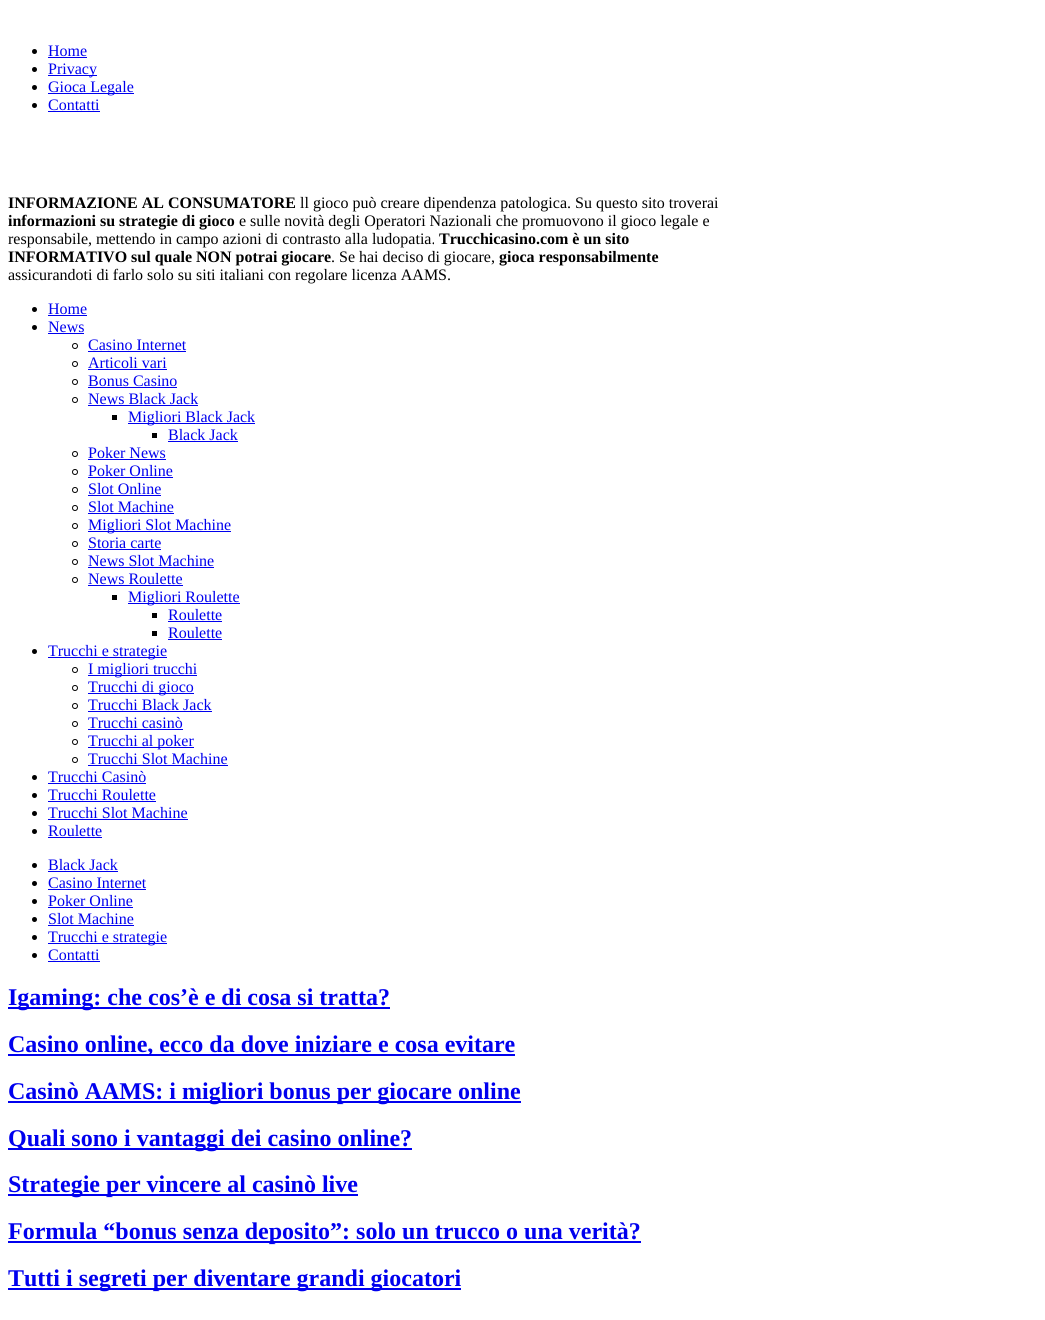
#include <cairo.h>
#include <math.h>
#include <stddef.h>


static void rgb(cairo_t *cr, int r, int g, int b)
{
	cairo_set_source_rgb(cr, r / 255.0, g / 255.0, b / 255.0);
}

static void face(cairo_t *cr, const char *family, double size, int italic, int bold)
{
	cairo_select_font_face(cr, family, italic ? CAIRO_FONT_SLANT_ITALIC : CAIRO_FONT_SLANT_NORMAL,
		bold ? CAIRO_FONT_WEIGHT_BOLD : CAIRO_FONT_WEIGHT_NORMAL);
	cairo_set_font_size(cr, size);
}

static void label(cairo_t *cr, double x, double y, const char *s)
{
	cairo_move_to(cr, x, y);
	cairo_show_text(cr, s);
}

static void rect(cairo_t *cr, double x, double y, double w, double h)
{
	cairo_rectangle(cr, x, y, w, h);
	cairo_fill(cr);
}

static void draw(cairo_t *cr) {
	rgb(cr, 255, 255, 255);
	cairo_paint(cr);
	rgb(cr, 0, 0, 0);
	cairo_arc(cr, 34.5, 51.5, 2.5, 0, 2 * M_PI);
	cairo_fill(cr);
	face(cr, "Liberation Serif", 16, 0, 0);
	rgb(cr, 0, 0, 238);
	label(cr, 48, 56, "Home");
	rect(cr, 48, 57, 39, 1);
	rgb(cr, 0, 0, 0);
	cairo_new_path(cr);
	cairo_arc(cr, 34.5, 69.5, 2.5, 0, 2 * M_PI);
	cairo_fill(cr);
	rgb(cr, 0, 0, 238);
	rect(cr, 48, 75, 49, 1);
	label(cr, 48, 74, "Privacy");
	rgb(cr, 0, 0, 0);
	cairo_new_path(cr);
	cairo_arc(cr, 34.5, 87.5, 2.5, 0, 2 * M_PI);
	cairo_fill(cr);
	rgb(cr, 0, 0, 238);
	rect(cr, 48, 93, 86, 1);
	label(cr, 48, 92, "Gioca Legale");
	rgb(cr, 0, 0, 0);
	cairo_new_path(cr);
	cairo_arc(cr, 34.5, 105.5, 2.5, 0, 2 * M_PI);
	cairo_fill(cr);
	rgb(cr, 0, 0, 238);
	label(cr, 48, 110, "Contatti");
	rect(cr, 48, 111, 52, 1);
	face(cr, "Liberation Serif", 16, 0, 1);
	rgb(cr, 0, 0, 0);
	label(cr, 8, 208, "INFORMAZIONE AL CONSUMATORE");
	face(cr, "Liberation Serif", 16, 0, 0);
	label(cr, 300, 208, "ll gioco può creare dipendenza patologica. Su questo sito troverai");
	face(cr, "Liberation Serif", 16, 0, 1);
	label(cr, 8, 226, "informazioni su strategie di gioco");
	face(cr, "Liberation Serif", 16, 0, 0);
	label(cr, 239, 226, "e sulle novità degli Operatori Nazionali che promuovono il gioco legale e");
	label(cr, 8, 244, "responsabile, mettendo in campo azioni di contrasto alla ludopatia.");
	face(cr, "Liberation Serif", 16, 0, 1);
	label(cr, 439, 244, "Trucchicasino.com è un sito");
	label(cr, 8, 262, "INFORMATIVO sul quale NON potrai giocare");
	face(cr, "Liberation Serif", 16, 0, 0);
	label(cr, 331, 262, ". Se hai deciso di giocare,");
	face(cr, "Liberation Serif", 16, 0, 1);
	label(cr, 499, 262, "gioca responsabilmente");
	face(cr, "Liberation Serif", 16, 0, 0);
	label(cr, 8, 280, "assicurandoti di farlo solo su siti italiani con regolare licenza AAMS.");
	cairo_new_path(cr);
	cairo_arc(cr, 34.5, 309.5, 2.5, 0, 2 * M_PI);
	cairo_fill(cr);
	rgb(cr, 0, 0, 238);
	label(cr, 48, 314, "Home");
	rect(cr, 48, 315, 39, 1);
	rgb(cr, 0, 0, 0);
	cairo_new_path(cr);
	cairo_arc(cr, 34.5, 327.5, 2.5, 0, 2 * M_PI);
	cairo_fill(cr);
	rgb(cr, 0, 0, 238);
	label(cr, 48, 332, "News");
	rect(cr, 48, 333, 36, 1);
	cairo_new_path(cr);
	cairo_arc(cr, 75, 346, 2.5, 0, 2 * M_PI);
	rgb(cr, 0, 0, 0);
	cairo_set_line_width(cr, 1);
	cairo_stroke(cr);
	rgb(cr, 0, 0, 238);
	label(cr, 88, 350, "Casino Internet");
	rect(cr, 88, 351, 98, 1);
	cairo_new_path(cr);
	cairo_arc(cr, 75, 364, 2.5, 0, 2 * M_PI);
	rgb(cr, 0, 0, 0);
	cairo_stroke(cr);
	rgb(cr, 0, 0, 238);
	label(cr, 88, 368, "Articoli vari");
	rect(cr, 88, 369, 79, 1);
	cairo_new_path(cr);
	cairo_arc(cr, 75, 382, 2.5, 0, 2 * M_PI);
	rgb(cr, 0, 0, 0);
	cairo_stroke(cr);
	rgb(cr, 0, 0, 238);
	label(cr, 88, 386, "Bonus Casino");
	rect(cr, 88, 387, 89, 1);
	cairo_new_path(cr);
	cairo_arc(cr, 75, 400, 2.5, 0, 2 * M_PI);
	rgb(cr, 0, 0, 0);
	cairo_stroke(cr);
	rgb(cr, 0, 0, 238);
	label(cr, 88, 404, "News Black Jack");
	rect(cr, 88, 405, 110, 1);
	rgb(cr, 0, 0, 0);
	rect(cr, 112, 415, 5, 5);
	rgb(cr, 0, 0, 238);
	rect(cr, 128, 423, 127, 1);
	label(cr, 128, 422, "Migliori Black Jack");
	rgb(cr, 0, 0, 0);
	rect(cr, 152, 433, 5, 5);
	rgb(cr, 0, 0, 238);
	label(cr, 168, 440, "Black Jack");
	rect(cr, 168, 441, 70, 1);
	cairo_new_path(cr);
	cairo_arc(cr, 75, 454, 2.5, 0, 2 * M_PI);
	rgb(cr, 0, 0, 0);
	cairo_stroke(cr);
	rgb(cr, 0, 0, 238);
	label(cr, 88, 458, "Poker News");
	rect(cr, 88, 459, 78, 1);
	cairo_new_path(cr);
	cairo_arc(cr, 75, 472, 2.5, 0, 2 * M_PI);
	rgb(cr, 0, 0, 0);
	cairo_stroke(cr);
	rgb(cr, 0, 0, 238);
	label(cr, 88, 476, "Poker Online");
	rect(cr, 88, 477, 85, 1);
	cairo_new_path(cr);
	cairo_arc(cr, 75, 490, 2.5, 0, 2 * M_PI);
	rgb(cr, 0, 0, 0);
	cairo_stroke(cr);
	rgb(cr, 0, 0, 238);
	label(cr, 88, 494, "Slot Online");
	rect(cr, 88, 495, 73, 1);
	cairo_new_path(cr);
	cairo_arc(cr, 75, 508, 2.5, 0, 2 * M_PI);
	rgb(cr, 0, 0, 0);
	cairo_stroke(cr);
	rgb(cr, 0, 0, 238);
	label(cr, 88, 512, "Slot Machine");
	rect(cr, 88, 513, 86, 1);
	cairo_new_path(cr);
	cairo_arc(cr, 75, 526, 2.5, 0, 2 * M_PI);
	rgb(cr, 0, 0, 0);
	cairo_stroke(cr);
	rgb(cr, 0, 0, 238);
	rect(cr, 88, 531, 143, 1);
	label(cr, 88, 530, "Migliori Slot Machine");
	cairo_new_path(cr);
	cairo_arc(cr, 75, 544, 2.5, 0, 2 * M_PI);
	rgb(cr, 0, 0, 0);
	cairo_stroke(cr);
	rgb(cr, 0, 0, 238);
	label(cr, 88, 548, "Storia carte");
	rect(cr, 88, 549, 73, 1);
	cairo_new_path(cr);
	cairo_arc(cr, 75, 562, 2.5, 0, 2 * M_PI);
	rgb(cr, 0, 0, 0);
	cairo_stroke(cr);
	rgb(cr, 0, 0, 238);
	label(cr, 88, 566, "News Slot Machine");
	rect(cr, 88, 567, 126, 1);
	cairo_new_path(cr);
	cairo_arc(cr, 75, 580, 2.5, 0, 2 * M_PI);
	rgb(cr, 0, 0, 0);
	cairo_stroke(cr);
	rgb(cr, 0, 0, 238);
	label(cr, 88, 584, "News Roulette");
	rect(cr, 88, 585, 95, 1);
	rgb(cr, 0, 0, 0);
	rect(cr, 112, 595, 5, 5);
	rgb(cr, 0, 0, 238);
	rect(cr, 128, 603, 112, 1);
	label(cr, 128, 602, "Migliori Roulette");
	rgb(cr, 0, 0, 0);
	rect(cr, 152, 613, 5, 5);
	rgb(cr, 0, 0, 238);
	label(cr, 168, 620, "Roulette");
	rect(cr, 168, 621, 54, 1);
	rgb(cr, 0, 0, 0);
	rect(cr, 152, 631, 5, 5);
	rgb(cr, 0, 0, 238);
	label(cr, 168, 638, "Roulette");
	rect(cr, 168, 639, 54, 1);
	rgb(cr, 0, 0, 0);
	cairo_new_path(cr);
	cairo_arc(cr, 34.5, 651.5, 2.5, 0, 2 * M_PI);
	cairo_fill(cr);
	rgb(cr, 0, 0, 238);
	rect(cr, 48, 657, 119, 1);
	label(cr, 48, 656, "Trucchi e strategie");
	cairo_new_path(cr);
	cairo_arc(cr, 75, 670, 2.5, 0, 2 * M_PI);
	rgb(cr, 0, 0, 0);
	cairo_stroke(cr);
	rgb(cr, 0, 0, 238);
	rect(cr, 88, 675, 109, 1);
	label(cr, 88, 674, "I migliori trucchi");
	cairo_new_path(cr);
	cairo_arc(cr, 75, 688, 2.5, 0, 2 * M_PI);
	rgb(cr, 0, 0, 0);
	cairo_stroke(cr);
	rgb(cr, 0, 0, 238);
	rect(cr, 88, 693, 106, 1);
	label(cr, 88, 692, "Trucchi di gioco");
	cairo_new_path(cr);
	cairo_arc(cr, 75, 706, 2.5, 0, 2 * M_PI);
	rgb(cr, 0, 0, 0);
	cairo_stroke(cr);
	rgb(cr, 0, 0, 238);
	label(cr, 88, 710, "Trucchi Black Jack");
	rect(cr, 88, 711, 124, 1);
	cairo_new_path(cr);
	cairo_arc(cr, 75, 724, 2.5, 0, 2 * M_PI);
	rgb(cr, 0, 0, 0);
	cairo_stroke(cr);
	rgb(cr, 0, 0, 238);
	label(cr, 88, 728, "Trucchi casinò");
	rect(cr, 88, 729, 95, 1);
	cairo_new_path(cr);
	cairo_arc(cr, 75, 742, 2.5, 0, 2 * M_PI);
	rgb(cr, 0, 0, 0);
	cairo_stroke(cr);
	rgb(cr, 0, 0, 238);
	rect(cr, 88, 747, 106, 1);
	label(cr, 88, 746, "Trucchi al poker");
	cairo_new_path(cr);
	cairo_arc(cr, 75, 760, 2.5, 0, 2 * M_PI);
	rgb(cr, 0, 0, 0);
	cairo_stroke(cr);
	rgb(cr, 0, 0, 238);
	label(cr, 88, 764, "Trucchi Slot Machine");
	rect(cr, 88, 765, 140, 1);
	rgb(cr, 0, 0, 0);
	cairo_new_path(cr);
	cairo_arc(cr, 34.5, 777.5, 2.5, 0, 2 * M_PI);
	cairo_fill(cr);
	rgb(cr, 0, 0, 238);
	label(cr, 48, 782, "Trucchi Casinò");
	rect(cr, 48, 783, 98, 1);
	rgb(cr, 0, 0, 0);
	cairo_new_path(cr);
	cairo_arc(cr, 34.5, 795.5, 2.5, 0, 2 * M_PI);
	cairo_fill(cr);
	rgb(cr, 0, 0, 238);
	label(cr, 48, 800, "Trucchi Roulette");
	rect(cr, 48, 801, 108, 1);
	rgb(cr, 0, 0, 0);
	cairo_new_path(cr);
	cairo_arc(cr, 34.5, 813.5, 2.5, 0, 2 * M_PI);
	cairo_fill(cr);
	rgb(cr, 0, 0, 238);
	label(cr, 48, 818, "Trucchi Slot Machine");
	rect(cr, 48, 819, 140, 1);
	rgb(cr, 0, 0, 0);
	cairo_new_path(cr);
	cairo_arc(cr, 34.5, 831.5, 2.5, 0, 2 * M_PI);
	cairo_fill(cr);
	rgb(cr, 0, 0, 238);
	label(cr, 48, 836, "Roulette");
	rect(cr, 48, 837, 54, 1);
	rgb(cr, 0, 0, 0);
	cairo_new_path(cr);
	cairo_arc(cr, 34.5, 865.5, 2.5, 0, 2 * M_PI);
	cairo_fill(cr);
	rgb(cr, 0, 0, 238);
	label(cr, 48, 870, "Black Jack");
	rect(cr, 48, 871, 70, 1);
	rgb(cr, 0, 0, 0);
	cairo_new_path(cr);
	cairo_arc(cr, 34.5, 883.5, 2.5, 0, 2 * M_PI);
	cairo_fill(cr);
	rgb(cr, 0, 0, 238);
	label(cr, 48, 888, "Casino Internet");
	rect(cr, 48, 889, 98, 1);
	rgb(cr, 0, 0, 0);
	cairo_new_path(cr);
	cairo_arc(cr, 34.5, 901.5, 2.5, 0, 2 * M_PI);
	cairo_fill(cr);
	rgb(cr, 0, 0, 238);
	label(cr, 48, 906, "Poker Online");
	rect(cr, 48, 907, 85, 1);
	rgb(cr, 0, 0, 0);
	cairo_new_path(cr);
	cairo_arc(cr, 34.5, 919.5, 2.5, 0, 2 * M_PI);
	cairo_fill(cr);
	rgb(cr, 0, 0, 238);
	label(cr, 48, 924, "Slot Machine");
	rect(cr, 48, 925, 86, 1);
	rgb(cr, 0, 0, 0);
	cairo_new_path(cr);
	cairo_arc(cr, 34.5, 937.5, 2.5, 0, 2 * M_PI);
	cairo_fill(cr);
	rgb(cr, 0, 0, 238);
	rect(cr, 48, 943, 119, 1);
	label(cr, 48, 942, "Trucchi e strategie");
	rgb(cr, 0, 0, 0);
	cairo_new_path(cr);
	cairo_arc(cr, 34.5, 955.5, 2.5, 0, 2 * M_PI);
	cairo_fill(cr);
	rgb(cr, 0, 0, 238);
	label(cr, 48, 960, "Contatti");
	rect(cr, 48, 961, 52, 1);
	rect(cr, 8, 1007, 382, 2);
	face(cr, "Liberation Serif", 24, 0, 1);
	label(cr, 8, 1005, "Igaming: che cos’è e di cosa si tratta?");
	rect(cr, 8, 1054, 507, 2);
	label(cr, 8, 1052, "Casino online, ecco da dove iniziare e cosa evitare");
	rect(cr, 8, 1101, 513, 2);
	label(cr, 8, 1099, "Casinò AAMS: i migliori bonus per giocare online");
	rect(cr, 8, 1148, 404, 2);
	label(cr, 8, 1146, "Quali sono i vantaggi dei casino online?");
	rect(cr, 8, 1194, 350, 2);
	label(cr, 8, 1192, "Strategie per vincere al casinò live");
	rect(cr, 8, 1241, 633, 2);
	label(cr, 8, 1239, "Formula “bonus senza deposito”: solo un trucco o una verità?");
	rect(cr, 8, 1288, 453, 2);
	label(cr, 8, 1286, "Tutti i segreti per diventare grandi giocatori");
}

int main(void) {
	cairo_surface_t *surface = cairo_image_surface_create(CAIRO_FORMAT_RGB24, 1045, 1320);
	cairo_t *cr = cairo_create(surface);
	cairo_font_options_t *options = cairo_font_options_create();
	cairo_font_options_set_hint_metrics(options, CAIRO_HINT_METRICS_OFF);
	cairo_font_options_set_hint_style(options, CAIRO_HINT_STYLE_NONE);
	cairo_set_font_options(cr, options);
	cairo_set_miter_limit(cr, 4);
	draw(cr);
	cairo_surface_write_to_png(surface, "render.png");
	cairo_font_options_destroy(options);
	cairo_destroy(cr);
	cairo_surface_destroy(surface);
	return 0;
}
